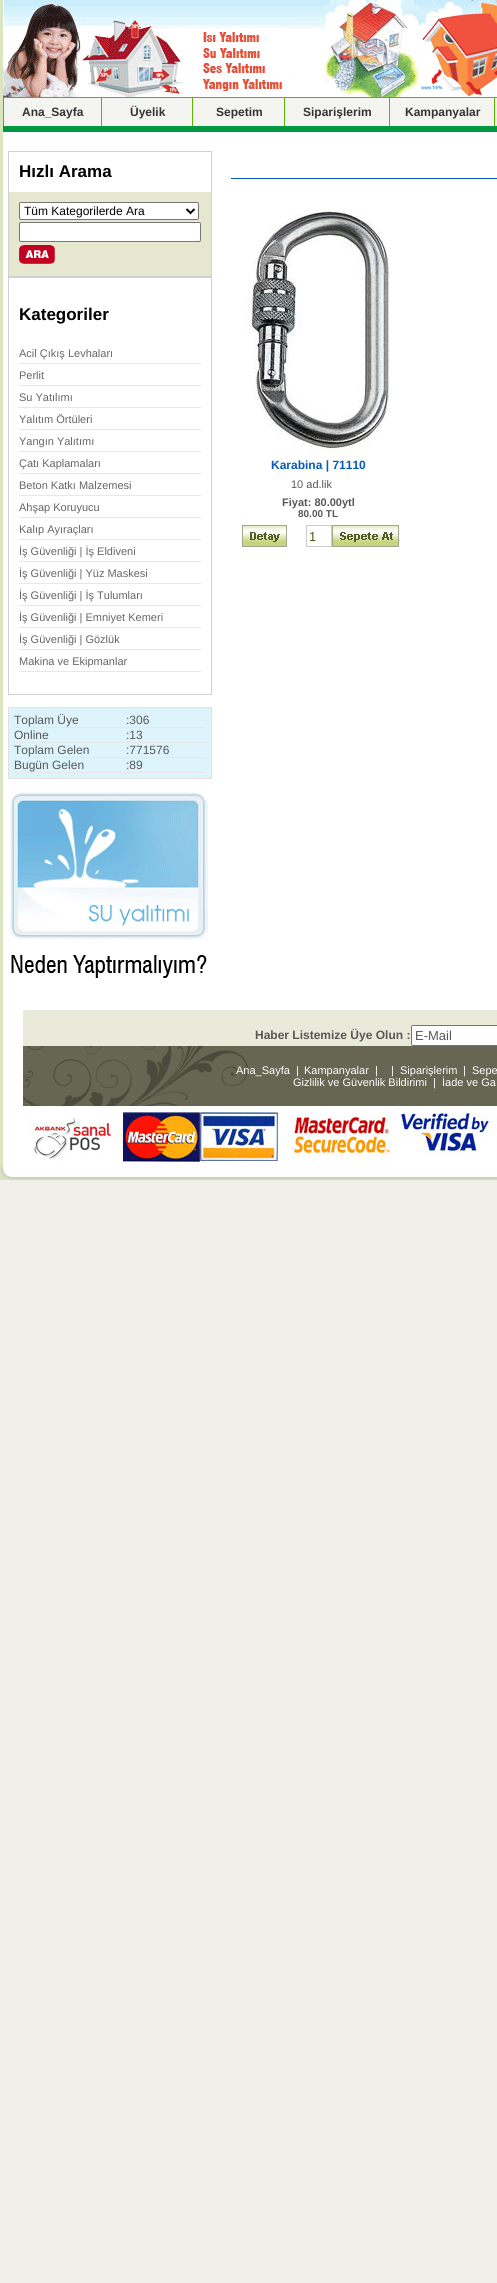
#include <cairo.h>
#include <math.h>
#include <stddef.h>


static void rgb(cairo_t *cr, int r, int g, int b)
{
	cairo_set_source_rgb(cr, r / 255.0, g / 255.0, b / 255.0);
}

static void face(cairo_t *cr, const char *family, double size, int italic, int bold)
{
	cairo_select_font_face(cr, family, italic ? CAIRO_FONT_SLANT_ITALIC : CAIRO_FONT_SLANT_NORMAL,
		bold ? CAIRO_FONT_WEIGHT_BOLD : CAIRO_FONT_WEIGHT_NORMAL);
	cairo_set_font_size(cr, size);
}

static void label(cairo_t *cr, double x, double y, const char *s)
{
	cairo_move_to(cr, x, y);
	cairo_show_text(cr, s);
}

static void rect(cairo_t *cr, double x, double y, double w, double h)
{
	cairo_rectangle(cr, x, y, w, h);
	cairo_fill(cr);
}

static void rrect(cairo_t *cr, double x, double y, double w, double h, double r)
{
	cairo_new_sub_path(cr);
	cairo_arc(cr, x + w - r, y + h - r, r, 0, M_PI / 2);
	cairo_arc(cr, x + r, y + h - r, r, M_PI / 2, M_PI);
	cairo_arc(cr, x + r, y + r, r, M_PI, 1.5 * M_PI);
	cairo_arc(cr, x + w - r, y + r, r, 1.5 * M_PI, 2 * M_PI);
	cairo_close_path(cr);
}

static void image(cairo_t *cr, const char *path, double x, double y, double w, double h)
{
	cairo_surface_t *image = cairo_image_surface_create_from_png(path);
	cairo_save(cr);
	cairo_set_source_surface(cr, image, x, y);
	cairo_rectangle(cr, x, y, w, h);
	cairo_fill(cr);
	cairo_restore(cr);
	cairo_surface_destroy(image);
}

static void draw(cairo_t *cr) {
	rgb(cr, 240, 239, 234);
	cairo_paint(cr);
	rgb(cr, 218, 230, 192);
	rect(cr, 0, 0, 3, 1167);
	rgb(cr, 255, 255, 255);
	rect(cr, 3, 132, 494, 1035);
	image(cr, "image0.png", 3, 0, 494, 97);
	rgb(cr, 244, 245, 240);
	rect(cr, 4, 98, 493, 28);
	rgb(cr, 92, 181, 4);
	rect(cr, 3, 97, 494, 1);
	rect(cr, 3, 97, 1, 29);
	face(cr, "Liberation Sans", 12, 0, 1);
	rgb(cr, 51, 51, 51);
	label(cr, 22, 116, "Ana_Sayfa");
	rgb(cr, 92, 181, 4);
	rect(cr, 101, 97, 1, 29);
	rgb(cr, 51, 51, 51);
	label(cr, 130, 116, "Üyelik");
	rgb(cr, 92, 181, 4);
	rect(cr, 192, 97, 1, 29);
	rgb(cr, 51, 51, 51);
	label(cr, 216, 116, "Sepetim");
	rgb(cr, 92, 181, 4);
	rect(cr, 284, 97, 1, 29);
	rgb(cr, 51, 51, 51);
	label(cr, 303, 116, "Siparişlerim");
	rgb(cr, 92, 181, 4);
	rect(cr, 389, 97, 1, 29);
	rgb(cr, 51, 51, 51);
	label(cr, 405, 116, "Kampanyalar");
	rgb(cr, 92, 181, 4);
	rect(cr, 494, 97, 1, 29);
	rgb(cr, 1, 152, 66);
	rect(cr, 3, 126, 494, 6);
	cairo_rectangle(cr, 8.5, 151.5, 203, 125);
	rgb(cr, 208, 208, 208);
	cairo_set_line_width(cr, 1);
	cairo_stroke(cr);
	face(cr, "Liberation Sans", 17, 0, 1);
	rgb(cr, 0, 0, 0);
	label(cr, 19, 177, "Hızlı Arama");
	rgb(cr, 229, 231, 207);
	rect(cr, 9, 192, 202, 84);
	rgb(cr, 255, 255, 255);
	rrect(cr, 19.5, 202.5, 179, 17, 1.5);
	cairo_fill_preserve(cr);
	rgb(cr, 118, 118, 118);
	cairo_stroke(cr);
	cairo_new_path(cr);
	cairo_move_to(cr, 186.5, 209);
	cairo_line_to(cr, 190.5, 213);
	cairo_line_to(cr, 194.5, 209);
	rgb(cr, 0, 0, 0);
	cairo_set_line_width(cr, 2);
	cairo_stroke(cr);
	face(cr, "Liberation Sans", 12, 0, 0);
	label(cr, 24, 215, "Tüm Kategorilerde Ara");
	rgb(cr, 255, 255, 255);
	rrect(cr, 19.5, 222.5, 181, 19, 1.5);
	cairo_fill_preserve(cr);
	rgb(cr, 118, 118, 118);
	cairo_set_line_width(cr, 1);
	cairo_stroke(cr);
	image(cr, "image1.png", 19, 245, 36, 19);
	cairo_rectangle(cr, 8.5, 277.5, 203, 417);
	rgb(cr, 208, 208, 208);
	cairo_stroke(cr);
	face(cr, "Liberation Sans", 17, 0, 1);
	rgb(cr, 0, 0, 0);
	label(cr, 19, 320, "Kategoriler");
	rgb(cr, 232, 232, 232);
	rect(cr, 19, 363, 182, 1);
	face(cr, "Liberation Sans", 11, 0, 0);
	rgb(cr, 102, 102, 102);
	label(cr, 19, 357, "Acil Çıkış Levhaları");
	rgb(cr, 232, 232, 232);
	rect(cr, 19, 385, 182, 1);
	rgb(cr, 102, 102, 102);
	label(cr, 19, 379, "Perlit");
	rgb(cr, 232, 232, 232);
	rect(cr, 19, 407, 182, 1);
	rgb(cr, 102, 102, 102);
	label(cr, 19, 401, "Su Yatılımı");
	rgb(cr, 232, 232, 232);
	rect(cr, 19, 429, 182, 1);
	rgb(cr, 102, 102, 102);
	label(cr, 19, 423, "Yalıtım Örtüleri");
	rgb(cr, 232, 232, 232);
	rect(cr, 19, 451, 182, 1);
	rgb(cr, 102, 102, 102);
	label(cr, 19, 445, "Yangın Yalıtımı");
	rgb(cr, 232, 232, 232);
	rect(cr, 19, 473, 182, 1);
	rgb(cr, 102, 102, 102);
	label(cr, 19, 467, "Çatı Kaplamaları");
	rgb(cr, 232, 232, 232);
	rect(cr, 19, 495, 182, 1);
	rgb(cr, 102, 102, 102);
	label(cr, 19, 489, "Beton Katkı Malzemesi");
	rgb(cr, 232, 232, 232);
	rect(cr, 19, 517, 182, 1);
	rgb(cr, 102, 102, 102);
	label(cr, 19, 511, "Ahşap Koruyucu");
	rgb(cr, 232, 232, 232);
	rect(cr, 19, 539, 182, 1);
	rgb(cr, 102, 102, 102);
	label(cr, 19, 533, "Kalıp Ayıraçları");
	rgb(cr, 232, 232, 232);
	rect(cr, 19, 561, 182, 1);
	rgb(cr, 102, 102, 102);
	label(cr, 19, 555, "İş Güvenliği | İş Eldiveni");
	rgb(cr, 232, 232, 232);
	rect(cr, 19, 583, 182, 1);
	rgb(cr, 102, 102, 102);
	label(cr, 19, 577, "İş Güvenliği | Yüz Maskesi");
	rgb(cr, 232, 232, 232);
	rect(cr, 19, 605, 182, 1);
	rgb(cr, 102, 102, 102);
	label(cr, 19, 599, "İş Güvenliği | İş Tulumları");
	rgb(cr, 232, 232, 232);
	rect(cr, 19, 627, 182, 1);
	rgb(cr, 102, 102, 102);
	label(cr, 19, 621, "İş Güvenliği | Emniyet Kemeri");
	rgb(cr, 232, 232, 232);
	rect(cr, 19, 649, 182, 1);
	rgb(cr, 102, 102, 102);
	label(cr, 19, 643, "İş Güvenliği | Gözlük");
	rgb(cr, 232, 232, 232);
	rect(cr, 19, 671, 182, 1);
	rgb(cr, 102, 102, 102);
	label(cr, 19, 665, "Makina ve Ekipmanlar");
	rgb(cr, 221, 244, 253);
	cairo_rectangle(cr, 8.5, 707.5, 203, 71);
	cairo_fill_preserve(cr);
	rgb(cr, 224, 224, 224);
	cairo_stroke(cr);
	rgb(cr, 232, 232, 232);
	rect(cr, 14, 727, 192, 1);
	face(cr, "Liberation Sans", 12, 0, 0);
	rgb(cr, 88, 88, 88);
	label(cr, 14, 724, "Toplam Üye");
	label(cr, 126, 724, ":306");
	rgb(cr, 232, 232, 232);
	rect(cr, 14, 742, 192, 1);
	rgb(cr, 88, 88, 88);
	label(cr, 14, 739, "Online");
	label(cr, 126, 739, ":13");
	rgb(cr, 232, 232, 232);
	rect(cr, 14, 757, 192, 1);
	rgb(cr, 88, 88, 88);
	label(cr, 14, 754, "Toplam Gelen");
	label(cr, 126, 754, ":771576");
	rgb(cr, 232, 232, 232);
	rect(cr, 14, 772, 192, 1);
	rgb(cr, 88, 88, 88);
	label(cr, 14, 769, "Bugün Gelen");
	label(cr, 126, 769, ":89");
	image(cr, "image2.png", 8, 791, 200, 187);
	rgb(cr, 5, 90, 186);
	rect(cr, 231, 178, 266, 1);
	image(cr, "image3.png", 246, 207, 144, 246);
	face(cr, "Liberation Sans", 12, 0, 1);
	label(cr, 271, 469, "Karabina | 71110");
	face(cr, "Liberation Sans", 11, 0, 0);
	rgb(cr, 88, 88, 88);
	label(cr, 291, 488, "10 ad.lik");
	face(cr, "Liberation Sans", 11, 0, 1);
	label(cr, 282, 506, "Fiyat: 80.00ytl");
	face(cr, "Liberation Sans", 10, 0, 1);
	label(cr, 298, 517, "80.00 TL");
	image(cr, "image4.png", 242, 525, 45, 22);
	cairo_rectangle(cr, 306.5, 525.5, 25, 21);
	rgb(cr, 204, 204, 204);
	cairo_stroke(cr);
	face(cr, "Liberation Sans", 13, 0, 0);
	rgb(cr, 76, 86, 23);
	label(cr, 309, 541, "1");
	image(cr, "image5.png", 332, 525, 67, 22);
	rgb(cr, 234, 234, 219);
	rect(cr, 23, 1010, 474, 36);
	face(cr, "Liberation Sans", 12, 0, 1);
	rgb(cr, 88, 88, 88);
	label(cr, 255, 1039, "Haber Listemize Üye Olun :");
	rgb(cr, 255, 255, 255);
	rrect(cr, 411.5, 1025.5, 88, 20, 1.5);
	cairo_fill_preserve(cr);
	rgb(cr, 118, 118, 118);
	cairo_stroke(cr);
	face(cr, "Liberation Sans", 13, 0, 0);
	rgb(cr, 88, 88, 88);
	label(cr, 415, 1040, "E-Mail");
	rgb(cr, 103, 102, 83);
	rect(cr, 248, 1046, 249, 60);
	image(cr, "image6.png", 23, 1046, 225, 60);
	face(cr, "Liberation Sans", 11, 0, 0);
	rgb(cr, 255, 255, 255);
	label(cr, 236, 1074, "Ana_Sayfa");
	label(cr, 296, 1074, "|");
	label(cr, 304, 1074, "Kampanyalar");
	label(cr, 375, 1074, "|");
	label(cr, 391, 1074, "|");
	label(cr, 400, 1074, "Siparişlerim");
	label(cr, 463, 1074, "|");
	label(cr, 472, 1074, "Sepe");
	label(cr, 293, 1086, "Gizlilik ve Güvenlik Bildirimi");
	label(cr, 433, 1086, "|");
	label(cr, 442, 1086, "İade ve Ga");
	image(cr, "image7.png", 31, 1106, 466, 56);
	image(cr, "image8.png", 0, 1167, 16, 13);
	image(cr, "image9.png", 16, 1167, 481, 13);
}

int main(void) {
	cairo_surface_t *surface = cairo_image_surface_create(CAIRO_FORMAT_RGB24, 497, 2283);
	cairo_t *cr = cairo_create(surface);
	cairo_font_options_t *options = cairo_font_options_create();
	cairo_font_options_set_hint_metrics(options, CAIRO_HINT_METRICS_OFF);
	cairo_font_options_set_hint_style(options, CAIRO_HINT_STYLE_NONE);
	cairo_set_font_options(cr, options);
	cairo_set_miter_limit(cr, 4);
	draw(cr);
	cairo_surface_write_to_png(surface, "render.png");
	cairo_font_options_destroy(options);
	cairo_destroy(cr);
	cairo_surface_destroy(surface);
	return 0;
}
